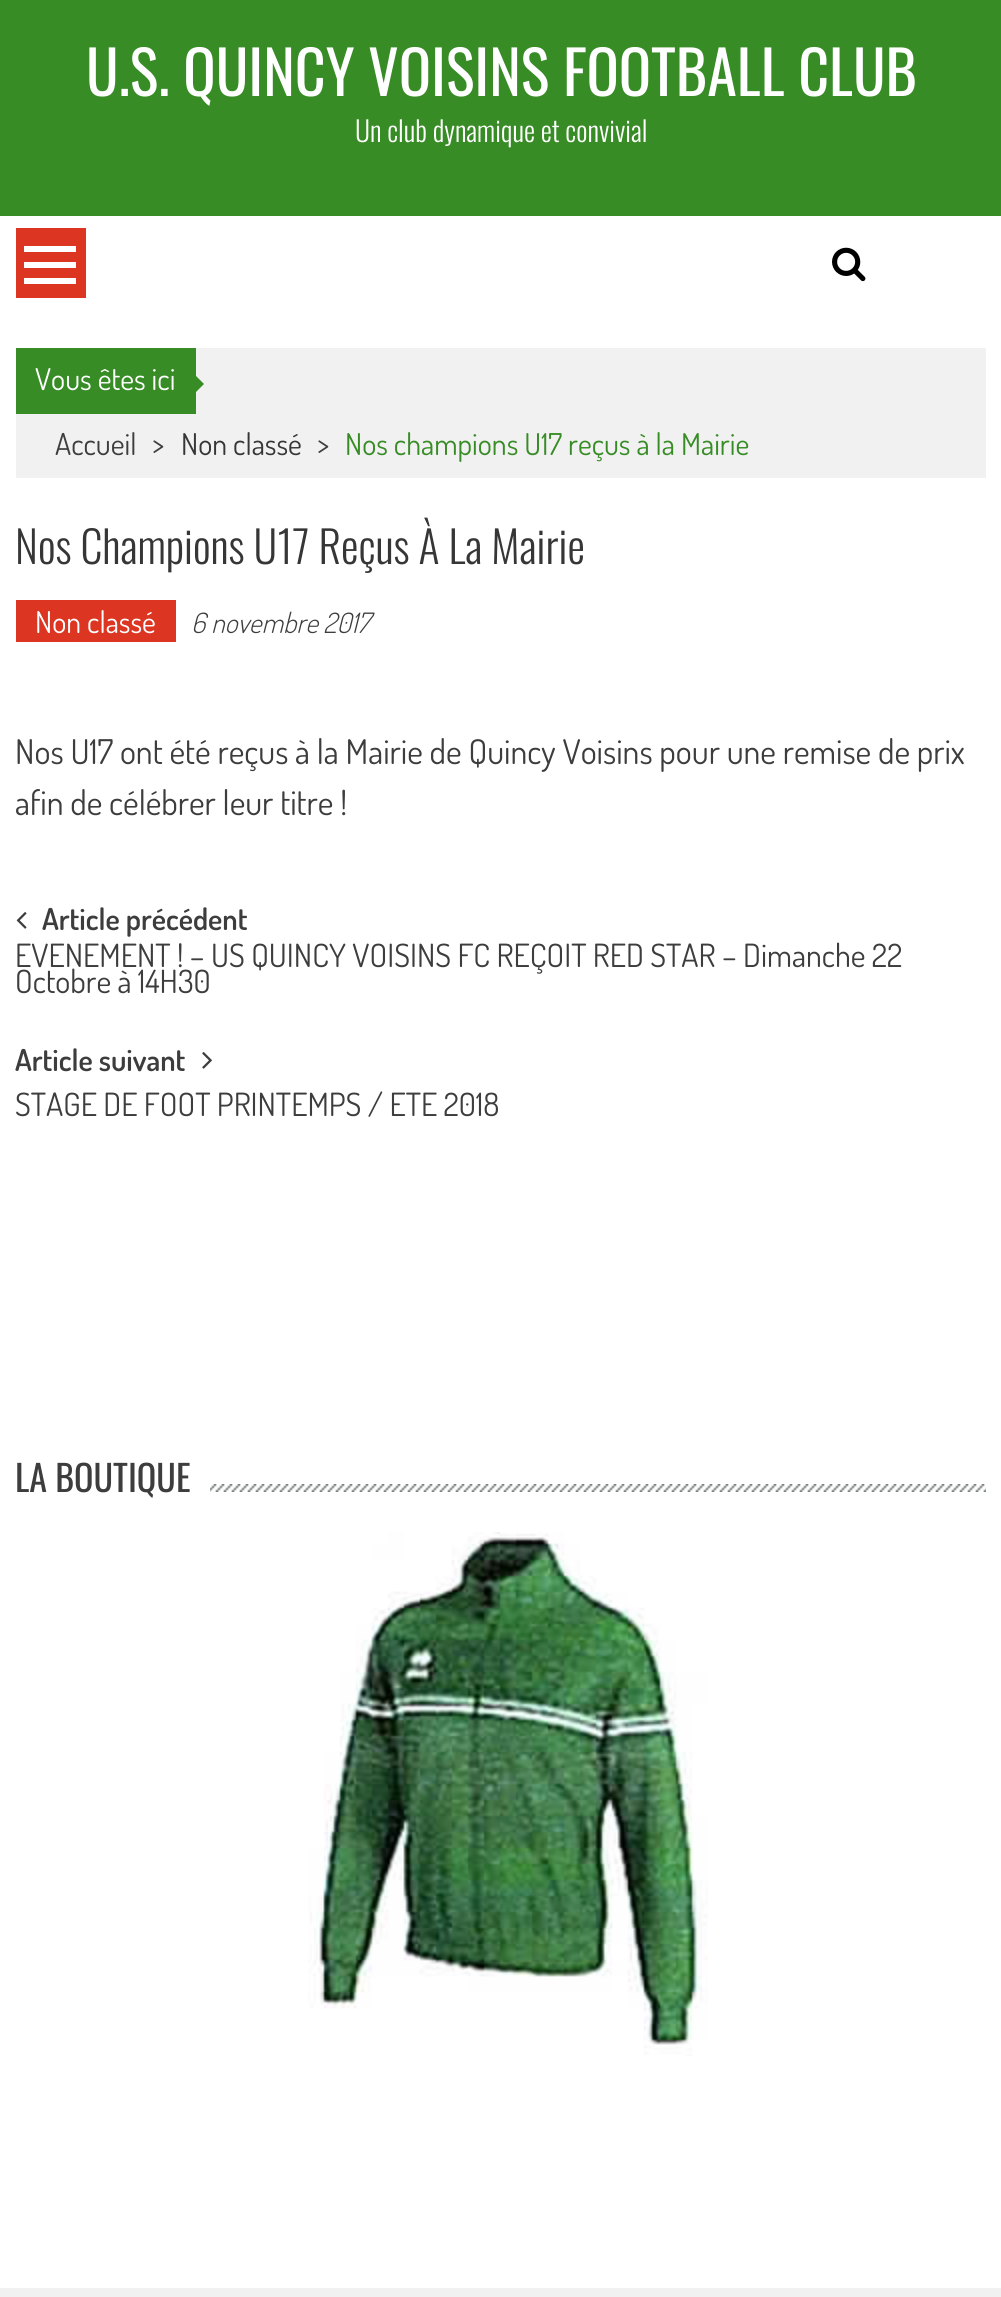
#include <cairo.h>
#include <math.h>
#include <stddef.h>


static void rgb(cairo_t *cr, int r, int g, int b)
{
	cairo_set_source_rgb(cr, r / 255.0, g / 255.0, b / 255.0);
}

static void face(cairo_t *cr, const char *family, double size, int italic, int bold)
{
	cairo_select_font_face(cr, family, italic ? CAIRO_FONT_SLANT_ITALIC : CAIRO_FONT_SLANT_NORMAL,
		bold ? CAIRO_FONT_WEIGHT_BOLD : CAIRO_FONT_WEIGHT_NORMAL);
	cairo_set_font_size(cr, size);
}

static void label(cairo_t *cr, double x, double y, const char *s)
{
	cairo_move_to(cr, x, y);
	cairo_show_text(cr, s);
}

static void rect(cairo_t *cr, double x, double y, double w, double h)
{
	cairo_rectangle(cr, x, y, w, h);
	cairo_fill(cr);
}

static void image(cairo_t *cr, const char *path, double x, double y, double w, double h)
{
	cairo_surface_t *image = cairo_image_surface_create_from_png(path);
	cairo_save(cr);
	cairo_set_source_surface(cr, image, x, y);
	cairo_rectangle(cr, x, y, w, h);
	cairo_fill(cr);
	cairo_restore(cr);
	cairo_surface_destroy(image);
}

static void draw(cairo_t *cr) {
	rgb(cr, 255, 255, 255);
	cairo_paint(cr);
	rgb(cr, 55, 140, 37);
	rect(cr, 0, 0, 1001, 216);
	face(cr, "Oswald", 60, 0, 0);
	rgb(cr, 255, 255, 255);
	label(cr, 86, 96, "U.S. QUINCY VOISINS FOOTBALL CLUB");
	face(cr, "Oswald Light", 28, 0, 0);
	label(cr, 355, 142, "Un club dynamique et convivial");
	rgb(cr, 220, 53, 34);
	rect(cr, 16, 228, 70, 70);
	rgb(cr, 255, 255, 255);
	rect(cr, 24, 246, 52, 6);
	rect(cr, 24, 262, 52, 6);
	rect(cr, 24, 278, 52, 6);
	image(cr, "image0.png", 832, 247, 34, 35);
	rgb(cr, 241, 241, 241);
	rect(cr, 16, 348, 970, 130);
	rgb(cr, 55, 140, 37);
	rect(cr, 16, 348, 180, 66);
	face(cr, "Dosis", 30, 0, 0);
	rgb(cr, 255, 255, 255);
	label(cr, 35, 390, "Vous êtes ici");
	rgb(cr, 55, 140, 37);
	cairo_new_path(cr);
	cairo_move_to(cr, 194, 394);
	cairo_line_to(cr, 194, 374);
	cairo_line_to(cr, 204, 384);
	cairo_close_path(cr);
	cairo_fill(cr);
	rgb(cr, 61, 61, 61);
	label(cr, 55, 455, "Accueil");
	label(cr, 152, 455, ">");
	rgb(cr, 54, 54, 54);
	label(cr, 181, 455, "Non classé");
	rgb(cr, 61, 61, 61);
	label(cr, 317, 455, ">");
	rgb(cr, 55, 140, 37);
	label(cr, 345, 455, "Nos champions U17 reçus à la Mairie");
	face(cr, "Oswald Light", 44, 0, 0);
	rgb(cr, 54, 54, 54);
	label(cr, 15, 564, "Nos Champions U17 Reçus À La Mairie");
	rgb(cr, 220, 53, 34);
	rect(cr, 16, 600, 160, 42);
	face(cr, "Dosis", 30, 0, 0);
	rgb(cr, 255, 255, 255);
	label(cr, 35, 633, "Non classé");
	face(cr, "Dosis Light", 28, 1, 0);
	rgb(cr, 61, 61, 61);
	label(cr, 191, 633, "6 novembre 2017");
	face(cr, "Dosis", 34, 0, 0);
	label(cr, 15, 764, "Nos U17 ont été reçus à la Mairie de Quincy Voisins pour une remise de prix");
	label(cr, 15, 815, "afin de célébrer leur titre !");
	image(cr, "image1.png", 16, 912, 11, 17);
	face(cr, "Dosis SemiBold", 30, 0, 0);
	label(cr, 42, 930, "Article précédent");
	face(cr, "Dosis", 32, 0, 0);
	label(cr, 15, 967, "EVENEMENT ! – US QUINCY VOISINS FC REÇOIT RED STAR – Dimanche 22");
	label(cr, 15, 993, "Octobre à 14H30");
	face(cr, "Dosis SemiBold", 30, 0, 0);
	label(cr, 15, 1071, "Article suivant");
	image(cr, "image2.png", 202, 1052, 10, 17);
	face(cr, "Dosis", 32, 0, 0);
	label(cr, 15, 1116, "STAGE DE FOOT PRINTEMPS / ETE 2018");
	image(cr, "image3.png", 210, 1484, 776, 8);
	face(cr, "Oswald", 36, 0, 0);
	label(cr, 15, 1492, "LA BOUTIQUE");
	image(cr, "image4.png", 308, 1532, 400, 524);
	rgb(cr, 241, 241, 241);
	rect(cr, 0, 2288, 1001, 9);
}

int main(void) {
	cairo_surface_t *surface = cairo_image_surface_create(CAIRO_FORMAT_RGB24, 1001, 2297);
	cairo_t *cr = cairo_create(surface);
	cairo_font_options_t *options = cairo_font_options_create();
	cairo_font_options_set_hint_metrics(options, CAIRO_HINT_METRICS_OFF);
	cairo_font_options_set_hint_style(options, CAIRO_HINT_STYLE_NONE);
	cairo_set_font_options(cr, options);
	cairo_set_miter_limit(cr, 4);
	draw(cr);
	cairo_surface_write_to_png(surface, "render.png");
	cairo_font_options_destroy(options);
	cairo_destroy(cr);
	cairo_surface_destroy(surface);
	return 0;
}
